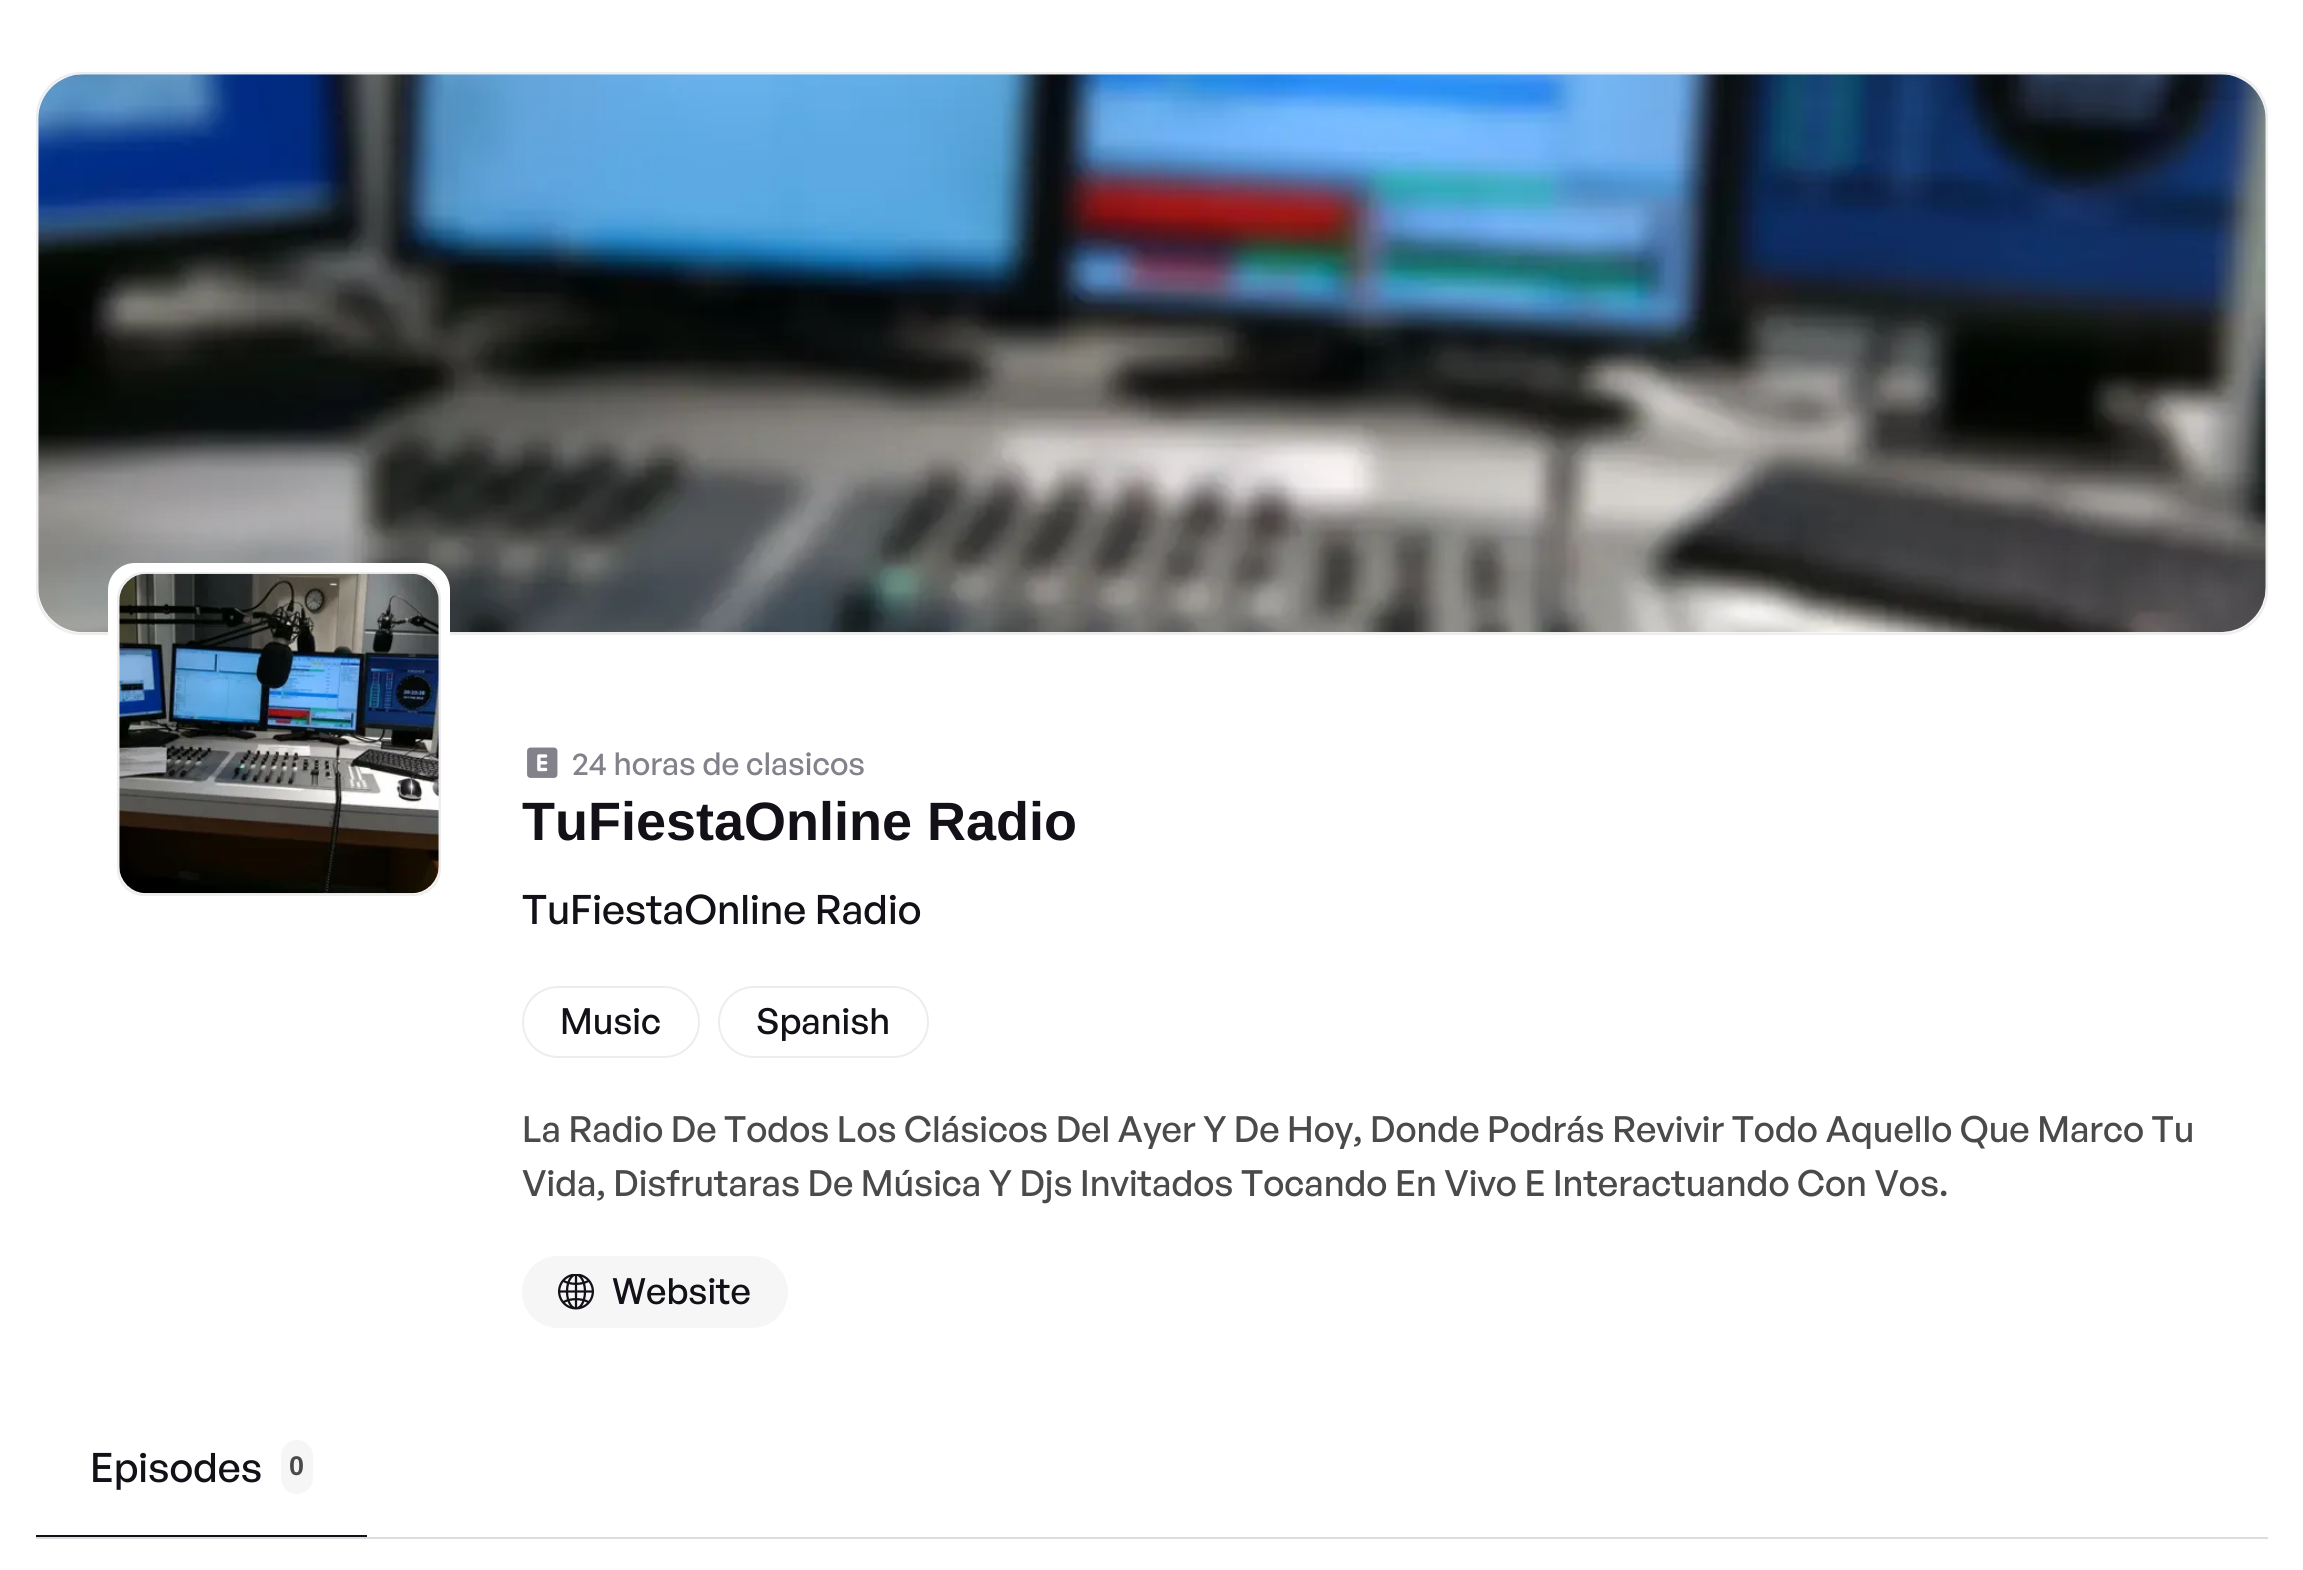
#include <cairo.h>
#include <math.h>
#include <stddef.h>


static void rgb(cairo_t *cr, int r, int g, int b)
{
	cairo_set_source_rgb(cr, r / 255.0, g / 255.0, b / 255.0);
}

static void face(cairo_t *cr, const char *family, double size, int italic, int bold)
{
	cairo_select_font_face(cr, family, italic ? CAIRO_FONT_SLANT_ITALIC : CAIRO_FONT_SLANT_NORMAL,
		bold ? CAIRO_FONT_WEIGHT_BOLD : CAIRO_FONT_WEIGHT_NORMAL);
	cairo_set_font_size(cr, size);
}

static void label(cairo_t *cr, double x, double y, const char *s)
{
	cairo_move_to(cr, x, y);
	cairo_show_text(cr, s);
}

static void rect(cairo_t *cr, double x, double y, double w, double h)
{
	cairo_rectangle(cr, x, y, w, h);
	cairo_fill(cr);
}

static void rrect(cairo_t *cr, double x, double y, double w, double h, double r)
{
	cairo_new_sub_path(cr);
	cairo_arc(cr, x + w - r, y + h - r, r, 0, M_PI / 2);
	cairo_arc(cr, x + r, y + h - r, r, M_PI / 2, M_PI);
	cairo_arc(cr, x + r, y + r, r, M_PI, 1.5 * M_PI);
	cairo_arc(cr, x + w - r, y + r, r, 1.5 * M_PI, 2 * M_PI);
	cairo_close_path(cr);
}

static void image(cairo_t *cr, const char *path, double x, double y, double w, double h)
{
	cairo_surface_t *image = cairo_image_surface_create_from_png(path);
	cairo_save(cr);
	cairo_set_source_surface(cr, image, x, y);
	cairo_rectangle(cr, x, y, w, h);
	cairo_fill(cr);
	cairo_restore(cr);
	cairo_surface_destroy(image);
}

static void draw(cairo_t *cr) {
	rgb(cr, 255, 255, 255);
	cairo_paint(cr);
	rgb(cr, 246, 246, 246);
	rrect(cr, 37, 73, 2230, 561, 44);
	cairo_fill_preserve(cr);
	rgb(cr, 237, 237, 237);
	cairo_stroke(cr);
	image(cr, "image0.png", 38, 74, 2228, 559);
	rgb(cr, 255, 255, 255);
	rrect(cr, 108, 563, 342, 342, 27);
	cairo_fill(cr);
	rgb(cr, 246, 246, 246);
	rrect(cr, 118, 573, 322, 322, 26);
	cairo_fill_preserve(cr);
	rgb(cr, 237, 237, 237);
	cairo_stroke(cr);
	image(cr, "image1.png", 119, 573, 320, 321);
	image(cr, "image2.png", 527, 747, 31, 31);
	face(cr, "General Sans Medium", 31.5, 0, 0);
	rgb(cr, 131, 129, 138);
	label(cr, 572, 775, "24 horas de clasicos");
	face(cr, "Liberation Sans", 54, 0, 1);
	rgb(cr, 19, 16, 24);
	label(cr, 522, 840, "TuFiestaOnline Radio");
	face(cr, "General Sans Medium", 40.5, 0, 0);
	label(cr, 522, 924, "TuFiestaOnline Radio");
	rrect(cr, 523, 987, 176, 70, 35);
	rgb(cr, 237, 237, 237);
	cairo_stroke(cr);
	face(cr, "General Sans Medium", 36, 0, 0);
	rgb(cr, 19, 16, 24);
	label(cr, 560, 1034, "Music");
	rrect(cr, 719, 987, 209, 70, 35);
	rgb(cr, 237, 237, 237);
	cairo_stroke(cr);
	rgb(cr, 19, 16, 24);
	label(cr, 756, 1034, "Spanish");
	rgb(cr, 74, 74, 74);
	label(cr, 522, 1142, "La Radio De Todos Los Clásicos Del Ayer Y De Hoy, Donde Podrás Revivir Todo Aquello Que Marco Tu");
	label(cr, 522, 1196, "Vida, Disfrutaras De Música Y Djs Invitados Tocando En Vivo E Interactuando Con Vos.");
	rgb(cr, 246, 246, 246);
	rrect(cr, 522, 1256, 266, 72, 36);
	cairo_fill(cr);
	image(cr, "image3.png", 558, 1274, 36, 36);
	rgb(cr, 19, 16, 24);
	label(cr, 612, 1304, "Website");
	rgb(cr, 221, 221, 221);
	rect(cr, 36, 1537, 2232, 2);
	rgb(cr, 19, 16, 24);
	rect(cr, 36, 1535, 331, 2);
	face(cr, "General Sans Medium", 40.5, 0, 0);
	label(cr, 90, 1482, "Episodes");
	rgb(cr, 246, 246, 246);
	rrect(cr, 281, 1440, 32, 54, 16);
	cairo_fill(cr);
	face(cr, "Liberation Sans", 27, 0, 1);
	rgb(cr, 74, 74, 74);
	label(cr, 289, 1475, "0");
}

int main(void) {
	cairo_surface_t *surface = cairo_image_surface_create(CAIRO_FORMAT_RGB24, 2303, 1570);
	cairo_t *cr = cairo_create(surface);
	cairo_font_options_t *options = cairo_font_options_create();
	cairo_font_options_set_hint_metrics(options, CAIRO_HINT_METRICS_OFF);
	cairo_font_options_set_hint_style(options, CAIRO_HINT_STYLE_NONE);
	cairo_set_font_options(cr, options);
	cairo_set_miter_limit(cr, 4);
	draw(cr);
	cairo_surface_write_to_png(surface, "render.png");
	cairo_font_options_destroy(options);
	cairo_destroy(cr);
	cairo_surface_destroy(surface);
	return 0;
}
